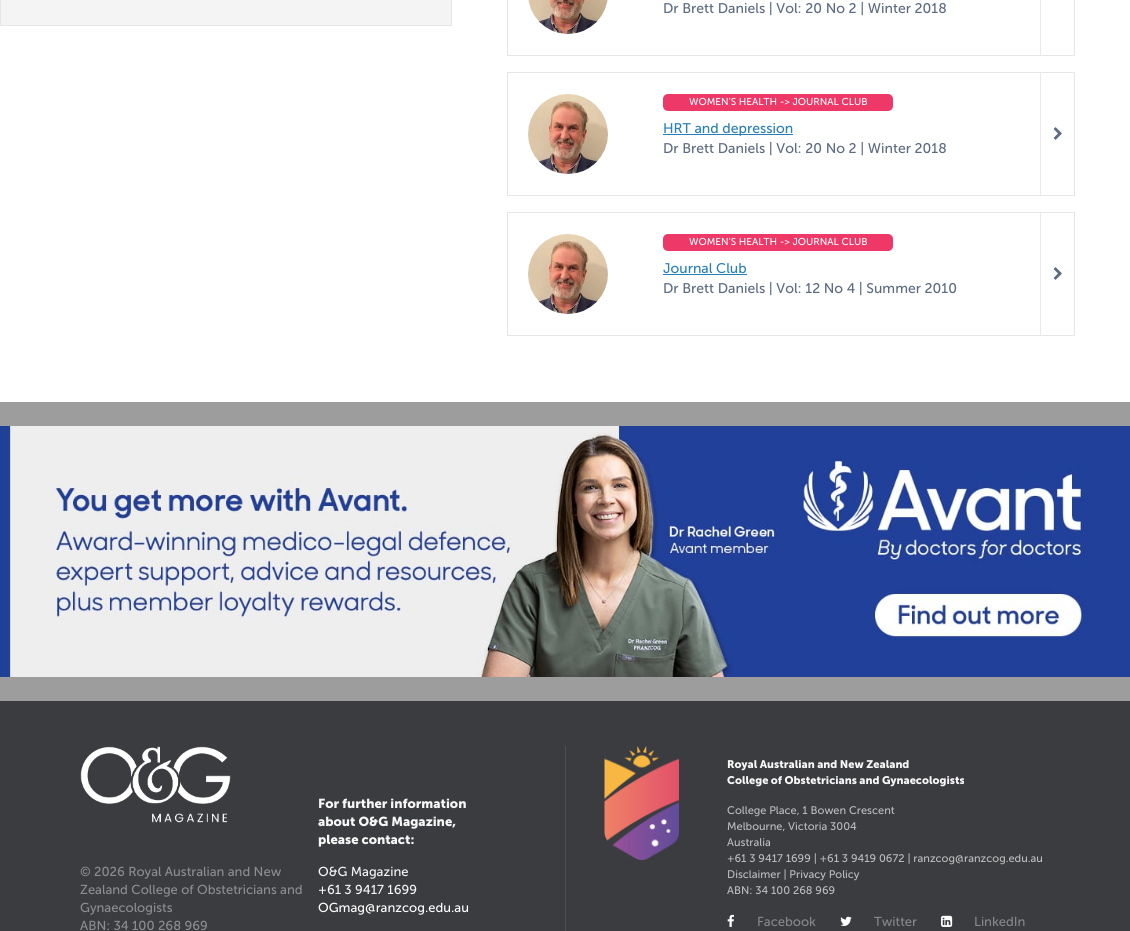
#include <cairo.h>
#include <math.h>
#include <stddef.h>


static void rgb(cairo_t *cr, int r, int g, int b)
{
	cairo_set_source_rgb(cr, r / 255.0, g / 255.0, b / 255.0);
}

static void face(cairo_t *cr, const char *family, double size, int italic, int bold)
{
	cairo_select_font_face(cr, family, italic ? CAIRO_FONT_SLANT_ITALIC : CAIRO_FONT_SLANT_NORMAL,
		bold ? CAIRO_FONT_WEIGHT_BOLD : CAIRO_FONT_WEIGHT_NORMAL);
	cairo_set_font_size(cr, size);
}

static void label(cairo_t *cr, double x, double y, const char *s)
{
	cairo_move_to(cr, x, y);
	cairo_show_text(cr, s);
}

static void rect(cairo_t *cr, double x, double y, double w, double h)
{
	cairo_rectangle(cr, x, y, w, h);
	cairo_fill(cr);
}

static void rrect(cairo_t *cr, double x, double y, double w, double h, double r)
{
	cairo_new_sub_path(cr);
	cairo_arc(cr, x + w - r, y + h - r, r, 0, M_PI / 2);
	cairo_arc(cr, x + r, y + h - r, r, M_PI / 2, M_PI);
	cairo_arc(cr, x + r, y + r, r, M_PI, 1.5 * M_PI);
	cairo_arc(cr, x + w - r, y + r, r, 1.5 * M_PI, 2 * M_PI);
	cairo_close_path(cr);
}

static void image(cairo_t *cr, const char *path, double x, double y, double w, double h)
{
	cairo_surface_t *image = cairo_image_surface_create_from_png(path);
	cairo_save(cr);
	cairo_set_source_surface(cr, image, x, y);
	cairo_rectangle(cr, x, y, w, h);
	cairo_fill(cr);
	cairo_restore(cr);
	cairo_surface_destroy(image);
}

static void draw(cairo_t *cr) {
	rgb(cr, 255, 255, 255);
	cairo_paint(cr);
	rgb(cr, 245, 244, 245);
	cairo_rectangle(cr, 0.5, -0.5, 451, 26);
	cairo_fill_preserve(cr);
	rgb(cr, 230, 230, 230);
	cairo_set_line_width(cr, 1);
	cairo_stroke(cr);
	cairo_rectangle(cr, 507.5, -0.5, 567, 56);
	cairo_stroke(cr);
	image(cr, "image0.png", 528, 0, 80, 34);
	face(cr, "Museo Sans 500", 14, 0, 0);
	rgb(cr, 92, 107, 128);
	label(cr, 663, 13, "Dr Brett Daniels | Vol: 20 No 2 | Winter 2018");
	rgb(cr, 234, 234, 234);
	rect(cr, 1040, 0, 1, 55);
	cairo_rectangle(cr, 507.5, 72.5, 567, 123);
	rgb(cr, 230, 230, 230);
	cairo_stroke(cr);
	image(cr, "image1.png", 528, 94, 80, 80);
	rgb(cr, 238, 56, 104);
	rrect(cr, 663, 94, 230, 17, 5);
	cairo_fill(cr);
	face(cr, "Museo Sans 500", 10, 0, 0);
	rgb(cr, 255, 255, 255);
	label(cr, 689, 105, "WOMEN'S HEALTH -> JOURNAL CLUB");
	rgb(cr, 41, 128, 185);
	rect(cr, 663, 134, 130, 1);
	face(cr, "Museo Sans 500", 14, 0, 0);
	label(cr, 663, 133, "HRT and depression");
	rgb(cr, 92, 107, 128);
	label(cr, 663, 153, "Dr Brett Daniels | Vol: 20 No 2 | Winter 2018");
	rgb(cr, 234, 234, 234);
	rect(cr, 1040, 73, 1, 122);
	image(cr, "image2.png", 1053, 127, 9, 13);
	cairo_rectangle(cr, 507.5, 212.5, 567, 123);
	rgb(cr, 230, 230, 230);
	cairo_stroke(cr);
	image(cr, "image3.png", 528, 234, 80, 80);
	rgb(cr, 238, 56, 104);
	rrect(cr, 663, 234, 230, 17, 5);
	cairo_fill(cr);
	face(cr, "Museo Sans 500", 10, 0, 0);
	rgb(cr, 255, 255, 255);
	label(cr, 689, 245, "WOMEN'S HEALTH -> JOURNAL CLUB");
	face(cr, "Museo Sans 500", 14, 0, 0);
	rgb(cr, 41, 128, 185);
	label(cr, 663, 273, "Journal Club");
	rect(cr, 663, 274, 84, 1);
	rgb(cr, 92, 107, 128);
	label(cr, 663, 293, "Dr Brett Daniels | Vol: 12 No 4 | Summer 2010");
	rgb(cr, 234, 234, 234);
	rect(cr, 1040, 213, 1, 122);
	image(cr, "image2.png", 1053, 267, 9, 13);
	rgb(cr, 157, 157, 158);
	rect(cr, 0, 402, 1130, 299);
	image(cr, "image4.png", 0, 426, 1130, 251);
	rgb(cr, 59, 60, 64);
	rect(cr, 0, 701, 1130, 230);
	image(cr, "image5.png", 80, 746, 151, 77);
	face(cr, "Museo Sans 500", 13, 0, 0);
	rgb(cr, 141, 141, 144);
	label(cr, 80, 876, "© 2026 Royal Australian and New");
	label(cr, 80, 894, "Zealand College of Obstetricians and");
	label(cr, 80, 912, "Gynaecologists");
	label(cr, 80, 930, "ABN: 34 100 268 969");
	face(cr, "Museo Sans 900", 13, 0, 1);
	rgb(cr, 247, 247, 247);
	label(cr, 318, 808, "For further information");
	label(cr, 318, 826, "about O&G Magazine,");
	label(cr, 318, 844, "please contact:");
	face(cr, "Museo Sans 500", 13, 0, 0);
	label(cr, 318, 876, "O&G Magazine");
	label(cr, 318, 894, "+61 3 9417 1699");
	rgb(cr, 255, 255, 255);
	label(cr, 318, 912, "OGmag@ranzcog.edu.au");
	rgb(cr, 77, 79, 83);
	rect(cr, 565, 746, 1, 185);
	image(cr, "image6.png", 604, 746, 75, 114);
	face(cr, "Museo Sans 900", 11, 0, 1);
	rgb(cr, 247, 247, 247);
	label(cr, 727, 768, "Royal Australian and New Zealand");
	label(cr, 727, 784, "College of Obstetricians and Gynaecologists");
	face(cr, "Museo Sans 500", 11, 0, 0);
	rgb(cr, 189, 189, 189);
	label(cr, 727, 814, "College Place, 1 Bowen Crescent");
	label(cr, 727, 830, "Melbourne, Victoria 3004");
	label(cr, 727, 846, "Australia");
	label(cr, 727, 862, "+61 3 9417 1699 | +61 3 9419 0672 | ranzcog@ranzcog.edu.au");
	label(cr, 727, 878, "Disclaimer | Privacy Policy");
	label(cr, 727, 894, "ABN: 34 100 268 969");
	image(cr, "image7.png", 727, 914, 7, 13);
	face(cr, "Museo Sans 500", 13, 0, 0);
	rgb(cr, 135, 135, 138);
	label(cr, 757, 926, "Facebook");
	image(cr, "image8.png", 840, 916, 12, 10);
	label(cr, 874, 926, "Twitter");
	image(cr, "image9.png", 941, 915, 12, 12);
	label(cr, 974, 926, "LinkedIn");
}

int main(void) {
	cairo_surface_t *surface = cairo_image_surface_create(CAIRO_FORMAT_RGB24, 1130, 931);
	cairo_t *cr = cairo_create(surface);
	cairo_font_options_t *options = cairo_font_options_create();
	cairo_font_options_set_hint_metrics(options, CAIRO_HINT_METRICS_OFF);
	cairo_font_options_set_hint_style(options, CAIRO_HINT_STYLE_NONE);
	cairo_set_font_options(cr, options);
	cairo_set_miter_limit(cr, 4);
	draw(cr);
	cairo_surface_write_to_png(surface, "render.png");
	cairo_font_options_destroy(options);
	cairo_destroy(cr);
	cairo_surface_destroy(surface);
	return 0;
}
